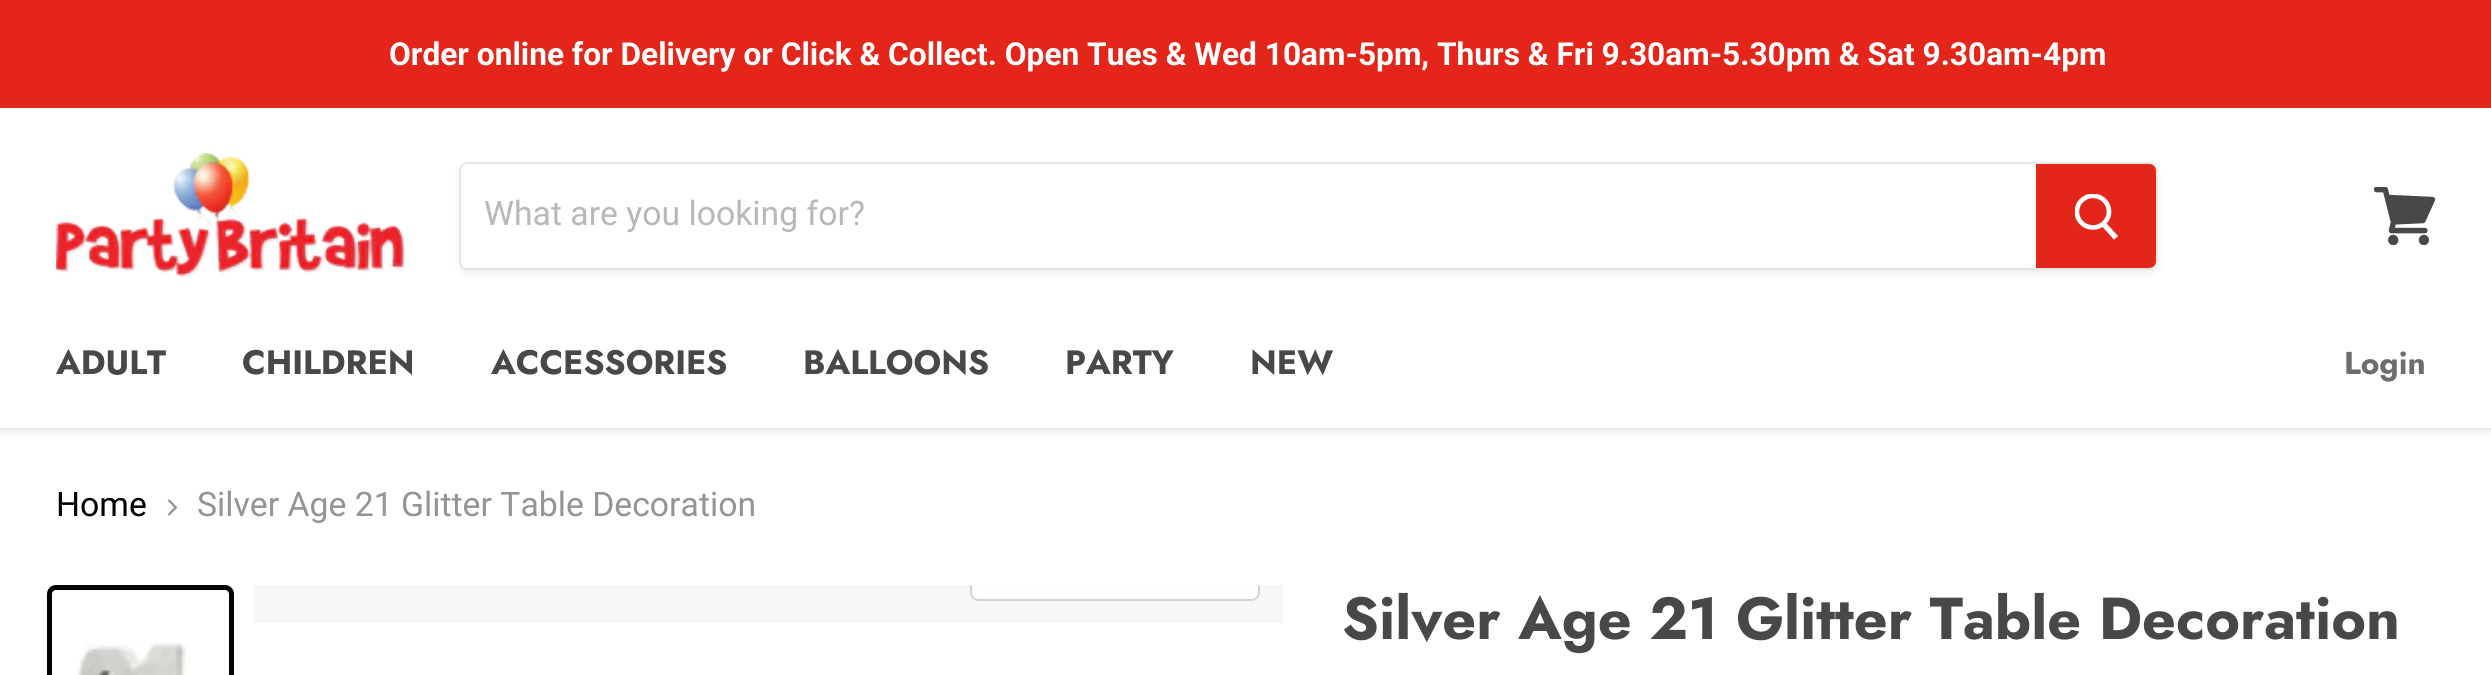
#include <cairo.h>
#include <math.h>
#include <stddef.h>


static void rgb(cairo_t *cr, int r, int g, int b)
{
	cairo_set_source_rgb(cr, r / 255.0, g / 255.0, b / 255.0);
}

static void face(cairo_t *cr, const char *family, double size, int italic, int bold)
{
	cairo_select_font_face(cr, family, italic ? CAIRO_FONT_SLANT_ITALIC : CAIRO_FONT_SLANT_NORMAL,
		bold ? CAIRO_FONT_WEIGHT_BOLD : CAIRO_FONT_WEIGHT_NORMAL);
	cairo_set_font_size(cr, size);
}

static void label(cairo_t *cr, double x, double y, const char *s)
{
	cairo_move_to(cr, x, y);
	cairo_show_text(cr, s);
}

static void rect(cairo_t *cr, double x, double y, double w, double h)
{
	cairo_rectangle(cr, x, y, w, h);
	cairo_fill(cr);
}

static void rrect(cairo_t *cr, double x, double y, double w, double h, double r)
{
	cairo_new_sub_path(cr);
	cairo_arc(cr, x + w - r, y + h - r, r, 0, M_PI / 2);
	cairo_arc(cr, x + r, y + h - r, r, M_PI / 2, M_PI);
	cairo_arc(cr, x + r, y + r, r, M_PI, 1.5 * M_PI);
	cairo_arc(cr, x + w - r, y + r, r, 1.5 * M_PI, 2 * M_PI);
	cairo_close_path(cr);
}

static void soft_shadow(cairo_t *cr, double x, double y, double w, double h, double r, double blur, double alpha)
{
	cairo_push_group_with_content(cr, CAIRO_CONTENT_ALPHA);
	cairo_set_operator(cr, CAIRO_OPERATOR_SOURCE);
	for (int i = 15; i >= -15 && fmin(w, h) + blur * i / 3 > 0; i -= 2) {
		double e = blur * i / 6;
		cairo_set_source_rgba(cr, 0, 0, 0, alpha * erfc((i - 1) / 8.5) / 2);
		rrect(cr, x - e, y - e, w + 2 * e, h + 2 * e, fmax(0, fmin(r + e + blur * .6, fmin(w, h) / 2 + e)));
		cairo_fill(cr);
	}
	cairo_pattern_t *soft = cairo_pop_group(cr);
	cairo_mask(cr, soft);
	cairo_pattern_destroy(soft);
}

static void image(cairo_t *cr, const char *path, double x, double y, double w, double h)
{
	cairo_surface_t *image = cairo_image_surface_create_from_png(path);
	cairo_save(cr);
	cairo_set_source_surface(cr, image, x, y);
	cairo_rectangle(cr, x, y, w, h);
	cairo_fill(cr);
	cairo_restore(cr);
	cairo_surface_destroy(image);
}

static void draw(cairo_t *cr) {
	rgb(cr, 255, 255, 255);
	cairo_paint(cr);
	rgb(cr, 227, 38, 25);
	rect(cr, 0, 0, 2491, 108);
	face(cr, "Roboto", 31.65, 0, 1);
	rgb(cr, 255, 255, 255);
	label(cr, 389, 65, "Order online for Delivery or Click & Collect. Open Tues & Wed 10am-5pm, Thurs & Fri 9.30am-5.30pm & Sat 9.30am-4pm");
	rgb(cr, 127, 127, 127);
	soft_shadow(cr, 0, 110, 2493, 320, 0, 4.5, 0.25);
	rgb(cr, 255, 255, 255);
	rect(cr, 0, 108, 2491, 320);
	image(cr, "image0.png", 56, 153, 349, 124);
	cairo_save(cr);
	cairo_set_fill_rule(cr, CAIRO_FILL_RULE_EVEN_ODD);
	cairo_new_path(cr);
	cairo_move_to(cr, 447, 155);
	cairo_line_to(cr, 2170, 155);
	cairo_line_to(cr, 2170, 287);
	cairo_line_to(cr, 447, 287);
	cairo_close_path(cr);
	cairo_move_to(cr, 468, 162);
	cairo_line_to(cr, 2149, 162);
	cairo_curve_to(cr, 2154, 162, 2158, 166, 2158, 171);
	cairo_line_to(cr, 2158, 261);
	cairo_curve_to(cr, 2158, 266, 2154, 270, 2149, 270);
	cairo_line_to(cr, 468, 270);
	cairo_curve_to(cr, 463, 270, 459, 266, 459, 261);
	cairo_line_to(cr, 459, 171);
	cairo_curve_to(cr, 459, 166, 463, 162, 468, 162);
	cairo_close_path(cr);
	cairo_clip(cr);
	rgb(cr, 127, 127, 127);
	soft_shadow(cr, 459, 167, 1699, 108, 9, 3.5, 0.11);
	cairo_restore(cr);
	rrect(cr, 460, 163, 1697, 106, 8);
	cairo_set_source_rgba(cr, 0.498, 0.498, 0.498, 0.2);
	cairo_stroke(cr);
	rgb(cr, 255, 255, 255);
	cairo_new_path(cr);
	cairo_move_to(cr, 468, 164);
	cairo_line_to(cr, 2036, 164);
	cairo_line_to(cr, 2036, 268);
	cairo_line_to(cr, 468, 268);
	cairo_curve_to(cr, 464, 268, 461, 265, 461, 261);
	cairo_line_to(cr, 461, 171);
	cairo_curve_to(cr, 461, 167, 464, 164, 468, 164);
	cairo_close_path(cr);
	cairo_fill(cr);
	face(cr, "Roboto", 33.75, 0, 0);
	rgb(cr, 184, 184, 184);
	label(cr, 484, 225, "What are you looking for?");
	rgb(cr, 227, 38, 25);
	cairo_new_path(cr);
	cairo_move_to(cr, 2037, 165);
	cairo_line_to(cr, 2149, 165);
	cairo_curve_to(cr, 2152.5, 165, 2155, 167.5, 2155, 171);
	cairo_line_to(cr, 2155, 261);
	cairo_curve_to(cr, 2155, 264.5, 2152.5, 267, 2149, 267);
	cairo_line_to(cr, 2037, 267);
	cairo_close_path(cr);
	cairo_fill_preserve(cr);
	cairo_stroke(cr);
	image(cr, "image1.png", 2075, 194, 43, 46);
	image(cr, "image2.png", 2374, 187, 62, 58);
	face(cr, "Jost", 33.75, 0, 1);
	rgb(cr, 72, 72, 72);
	label(cr, 56, 374, "ADULT");
	label(cr, 242, 374, "CHILDREN");
	label(cr, 491, 374, "ACCESSORIES");
	label(cr, 803, 374, "BALLOONS");
	label(cr, 1065, 374, "PARTY");
	label(cr, 1250, 374, "NEW");
	face(cr, "Jost", 31.65, 0, 1);
	rgb(cr, 109, 109, 109);
	label(cr, 2344, 374, "Login");
	face(cr, "Roboto", 33.75, 0, 0);
	rgb(cr, 0, 0, 0);
	label(cr, 56, 516, "Home");
	image(cr, "image3.png", 167, 499, 11, 17);
	rgb(cr, 148, 148, 148);
	label(cr, 197, 516, "Silver Age 21 Glitter Table Decoration");
	rrect(cr, 49.5, 587.5, 182, 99, 6.5);
	rgb(cr, 0, 0, 0);
	cairo_set_line_width(cr, 5);
	cairo_stroke(cr);
	image(cr, "image4.png", 77, 642, 110, 33);
	rgb(cr, 247, 247, 247);
	rect(cr, 254, 585, 1029, 38);
	cairo_save(cr);
	cairo_rectangle(cr, 254, 585, 1029, 38);
	cairo_clip(cr);
	rrect(cr, 971, 537, 288, 63, 8);
	rgb(cr, 210, 210, 210);
	cairo_set_line_width(cr, 2);
	cairo_stroke(cr);
	cairo_restore(cr);
	cairo_set_source_rgba(cr, 1, 1, 1, 0.9);
	cairo_new_path(cr);
	cairo_move_to(cr, 972, 585);
	cairo_line_to(cr, 1258, 585);
	cairo_line_to(cr, 1258, 592);
	cairo_curve_to(cr, 1258, 596, 1255, 599, 1251, 599);
	cairo_line_to(cr, 979, 599);
	cairo_curve_to(cr, 975, 599, 972, 596, 972, 592);
	cairo_close_path(cr);
	cairo_fill(cr);
	face(cr, "Jost", 59.1, 0, 1);
	rgb(cr, 72, 72, 72);
	label(cr, 1342, 639, "Silver Age 21 Glitter Table Decoration");
}

int main(void) {
	cairo_surface_t *surface = cairo_image_surface_create(CAIRO_FORMAT_RGB24, 2491, 675);
	cairo_t *cr = cairo_create(surface);
	cairo_font_options_t *options = cairo_font_options_create();
	cairo_font_options_set_hint_metrics(options, CAIRO_HINT_METRICS_OFF);
	cairo_font_options_set_hint_style(options, CAIRO_HINT_STYLE_NONE);
	cairo_set_font_options(cr, options);
	cairo_set_miter_limit(cr, 4);
	draw(cr);
	cairo_surface_write_to_png(surface, "render.png");
	cairo_font_options_destroy(options);
	cairo_destroy(cr);
	cairo_surface_destroy(surface);
	return 0;
}
